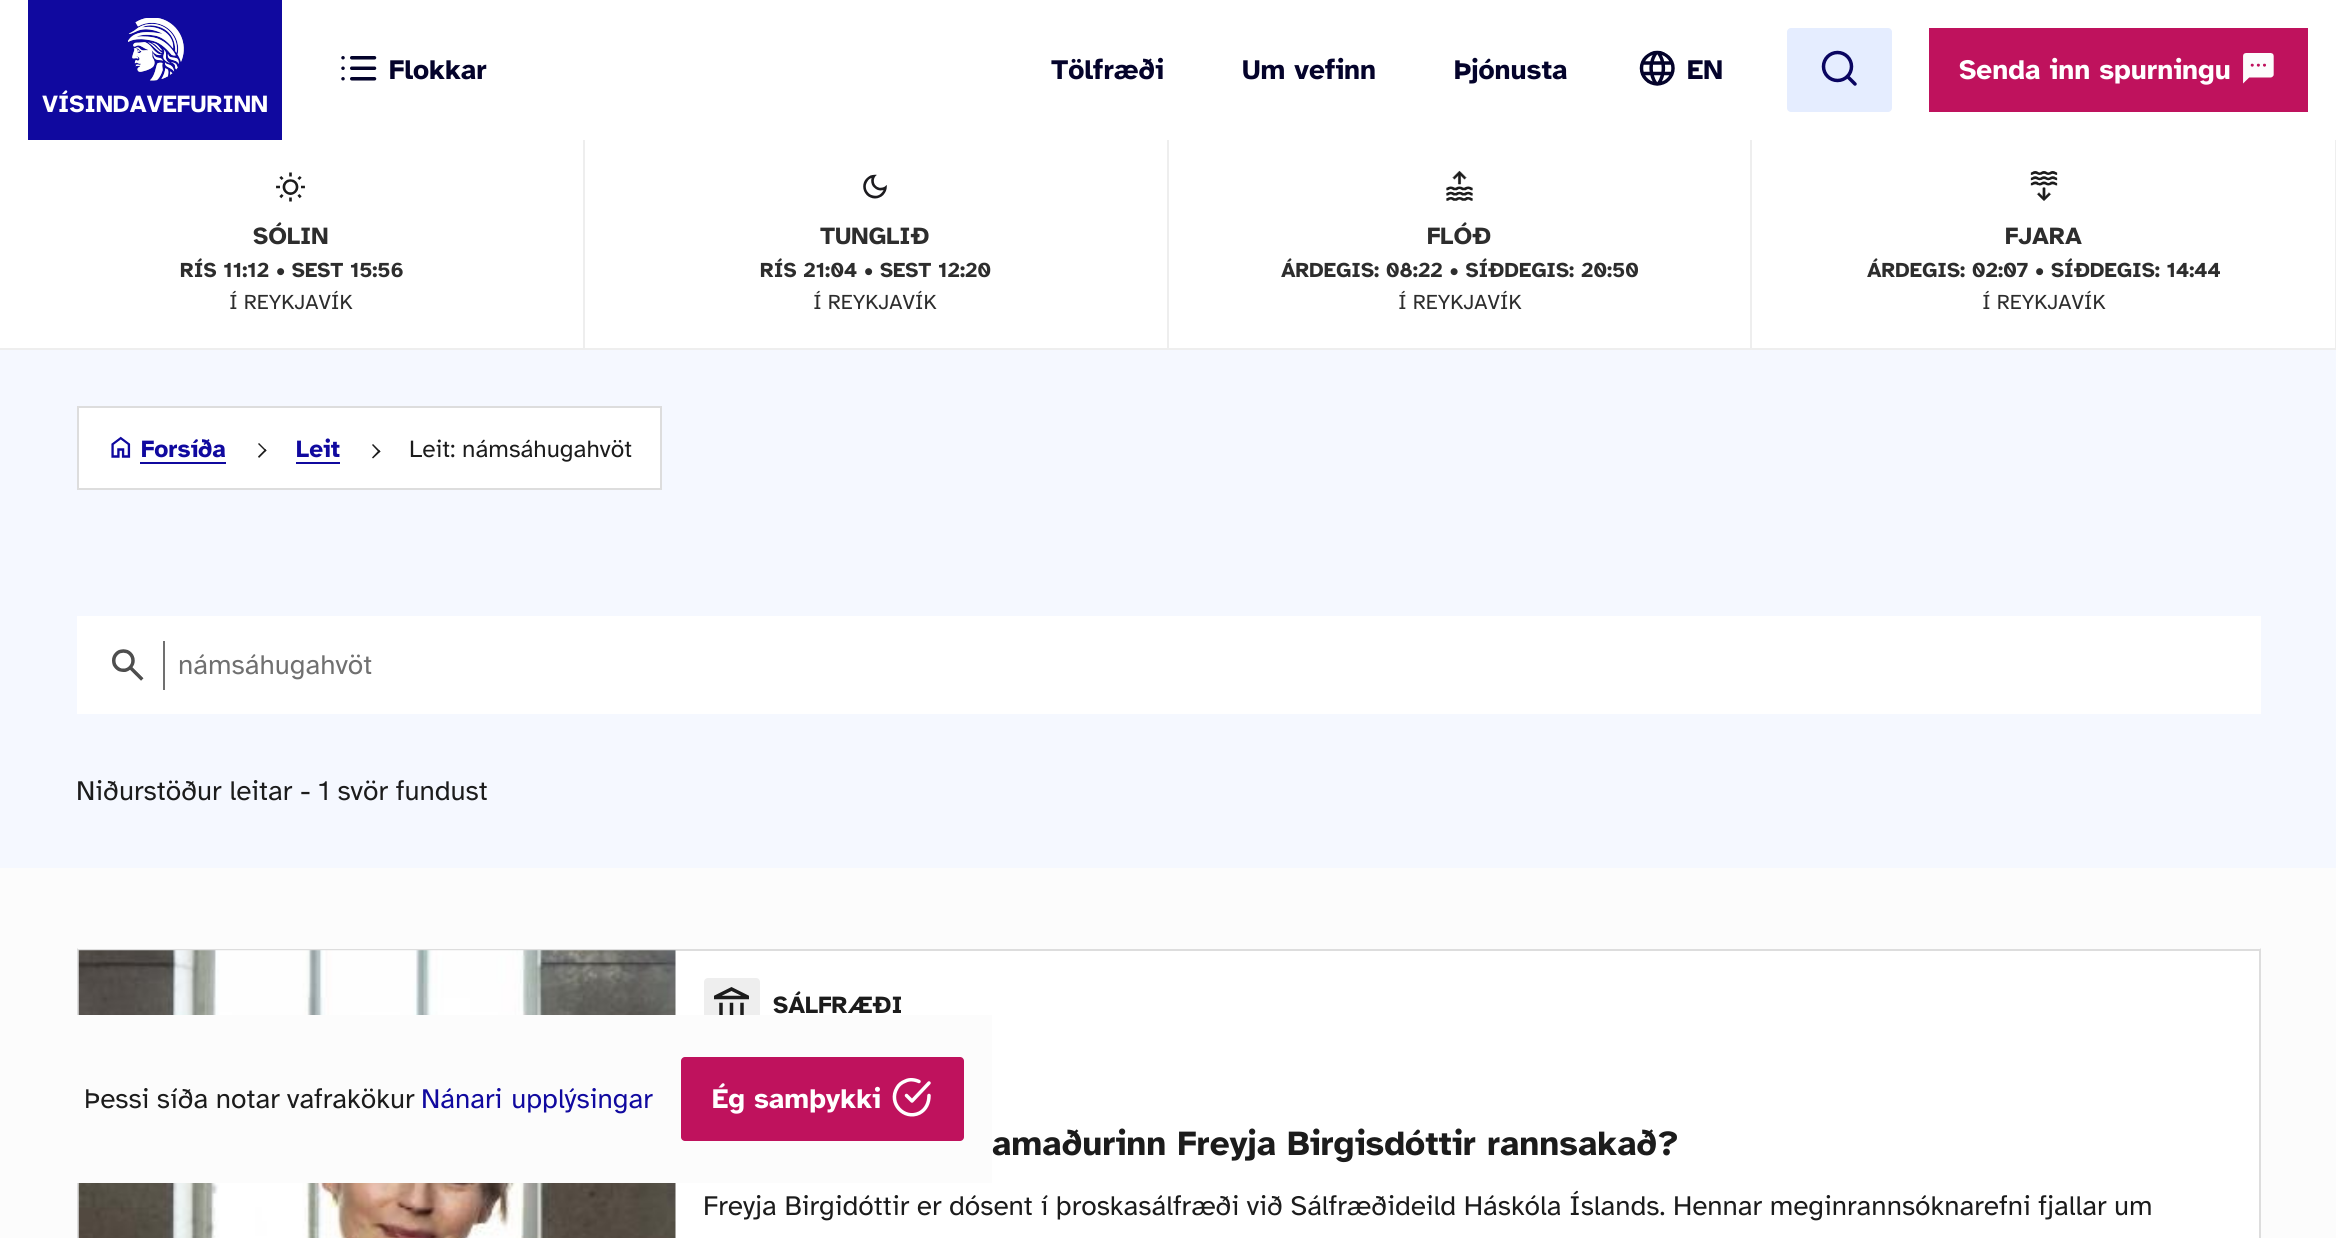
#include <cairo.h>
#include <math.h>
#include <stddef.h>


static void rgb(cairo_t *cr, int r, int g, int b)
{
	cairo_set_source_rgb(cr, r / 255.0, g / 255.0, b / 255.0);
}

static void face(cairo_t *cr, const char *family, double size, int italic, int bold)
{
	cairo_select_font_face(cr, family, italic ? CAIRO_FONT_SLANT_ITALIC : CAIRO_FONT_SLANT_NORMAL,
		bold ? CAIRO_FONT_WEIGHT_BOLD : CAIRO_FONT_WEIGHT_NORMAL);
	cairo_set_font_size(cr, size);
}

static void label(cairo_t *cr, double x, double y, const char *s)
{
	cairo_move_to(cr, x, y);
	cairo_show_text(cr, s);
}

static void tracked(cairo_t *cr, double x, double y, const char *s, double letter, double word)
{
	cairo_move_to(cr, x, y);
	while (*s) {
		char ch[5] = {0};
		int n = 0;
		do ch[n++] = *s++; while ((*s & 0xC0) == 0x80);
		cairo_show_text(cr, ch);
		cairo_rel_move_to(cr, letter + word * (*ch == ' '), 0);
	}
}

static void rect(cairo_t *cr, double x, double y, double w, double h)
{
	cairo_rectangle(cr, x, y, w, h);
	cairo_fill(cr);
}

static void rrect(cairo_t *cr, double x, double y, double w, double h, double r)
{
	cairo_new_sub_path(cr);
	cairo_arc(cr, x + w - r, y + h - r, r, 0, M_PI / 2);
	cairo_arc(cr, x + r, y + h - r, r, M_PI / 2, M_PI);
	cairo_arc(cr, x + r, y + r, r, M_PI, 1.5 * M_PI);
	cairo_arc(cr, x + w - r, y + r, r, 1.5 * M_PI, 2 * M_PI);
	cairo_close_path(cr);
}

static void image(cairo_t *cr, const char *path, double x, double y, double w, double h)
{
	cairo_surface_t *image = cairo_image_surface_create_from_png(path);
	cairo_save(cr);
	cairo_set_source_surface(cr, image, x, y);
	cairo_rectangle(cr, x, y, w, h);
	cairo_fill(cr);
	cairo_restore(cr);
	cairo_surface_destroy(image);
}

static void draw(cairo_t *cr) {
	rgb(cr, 255, 255, 255);
	cairo_paint(cr);
	image(cr, "image0.png", 341, 56, 36, 25);
	face(cr, "Atkinson Hyperlegible", 28, 0, 1);
	rgb(cr, 4, 3, 43);
	label(cr, 389, 79, "Flokkar");
	label(cr, 1051, 79, "Tölfræði");
	label(cr, 1242, 79, "Um vefinn");
	label(cr, 1454, 79, "Þjónusta");
	image(cr, "image1.png", 1639, 50, 36, 36);
	label(cr, 1687, 79, "EN");
	rgb(cr, 229, 237, 255);
	rrect(cr, 1787, 28, 105, 84, 4);
	cairo_fill(cr);
	cairo_arc(cr, 1837.5, 66.5, 14, 0, 2 * M_PI);
	rgb(cr, 10, 5, 97);
	cairo_set_line_width(cr, 3.5);
	cairo_stroke(cr);
	cairo_new_path(cr);
	cairo_move_to(cr, 1855, 84);
	cairo_line_to(cr, 1847.5, 76.5);
	cairo_set_line_cap(cr, CAIRO_LINE_CAP_ROUND);
	cairo_set_line_join(cr, CAIRO_LINE_JOIN_ROUND);
	cairo_stroke(cr);
	rgb(cr, 191, 18, 93);
	rect(cr, 1929, 28, 379, 84);
	rgb(cr, 255, 255, 255);
	label(cr, 1959, 79, "Senda inn spurningu");
	image(cr, "image2.png", 2243, 53, 31, 31);
	rgb(cr, 16, 9, 159);
	rect(cr, 28, 0, 254, 140);
	image(cr, "image3.png", 128, 18, 56, 63);
	face(cr, "Atkinson Hyperlegible", 24.5, 0, 1);
	rgb(cr, 255, 255, 255);
	label(cr, 42, 112, "VÍSINDAVEFURINN");
	rgb(cr, 238, 238, 238);
	rect(cr, 583, 140, 2, 210);
	rect(cr, 0, 348, 585, 2);
	image(cr, "image4.png", 276, 172, 29, 30);
	rgb(cr, 45, 45, 45);
	label(cr, 253, 244, "SÓLIN");
	face(cr, "Atkinson Hyperlegible", 21.1, 0, 1);
	label(cr, 180, 277, "RÍS 11:12 • SEST 15:56");
	face(cr, "Atkinson Hyperlegible", 21.1, 0, 0);
	label(cr, 229, 309, "Í REYKJAVÍK");
	rgb(cr, 238, 238, 238);
	rect(cr, 1167, 140, 2, 210);
	rect(cr, 585, 348, 584, 2);
	image(cr, "image5.png", 863, 174, 24, 25);
	face(cr, "Atkinson Hyperlegible", 24.5, 0, 1);
	rgb(cr, 45, 45, 45);
	label(cr, 820, 244, "TUNGLIÐ");
	face(cr, "Atkinson Hyperlegible", 21.1, 0, 1);
	label(cr, 760, 277, "RÍS 21:04 • SEST 12:20");
	face(cr, "Atkinson Hyperlegible", 21.1, 0, 0);
	label(cr, 813, 309, "Í REYKJAVÍK");
	rgb(cr, 238, 238, 238);
	rect(cr, 1750, 140, 2, 210);
	rect(cr, 1169, 348, 583, 2);
	image(cr, "image6.png", 1446, 170, 27, 31);
	face(cr, "Atkinson Hyperlegible", 24.5, 0, 1);
	rgb(cr, 45, 45, 45);
	label(cr, 1427, 244, "FLÓÐ");
	face(cr, "Atkinson Hyperlegible", 21.1, 0, 1);
	label(cr, 1281, 277, "ÁRDEGIS: 08:22 • SÍÐDEGIS: 20:50");
	face(cr, "Atkinson Hyperlegible", 21.1, 0, 0);
	label(cr, 1398, 309, "Í REYKJAVÍK");
	rgb(cr, 238, 238, 238);
	rect(cr, 2335, 140, 1, 210);
	rect(cr, 1752, 348, 584, 2);
	image(cr, "image7.png", 2030, 171, 28, 30);
	face(cr, "Atkinson Hyperlegible", 24.5, 0, 1);
	rgb(cr, 45, 45, 45);
	label(cr, 2005, 244, "FJARA");
	face(cr, "Atkinson Hyperlegible", 21.1, 0, 1);
	label(cr, 1867, 277, "ÁRDEGIS: 02:07 • SÍÐDEGIS: 14:44");
	face(cr, "Atkinson Hyperlegible", 21.1, 0, 0);
	label(cr, 1982, 309, "Í REYKJAVÍK");
	rgb(cr, 252, 252, 252);
	rect(cr, 0, 868, 2336, 370);
	rgb(cr, 245, 248, 255);
	rect(cr, 0, 350, 2336, 518);
	rgb(cr, 255, 255, 255);
	cairo_rectangle(cr, 78, 407, 583, 82);
	cairo_fill_preserve(cr);
	rgb(cr, 221, 221, 221);
	cairo_set_line_width(cr, 2);
	cairo_set_line_cap(cr, CAIRO_LINE_CAP_BUTT);
	cairo_set_line_join(cr, CAIRO_LINE_JOIN_MITER);
	cairo_stroke(cr);
	image(cr, "image8.png", 111, 436, 20, 22);
	face(cr, "Atkinson Hyperlegible", 24.5, 0, 1);
	rgb(cr, 16, 9, 159);
	label(cr, 141, 457, "Forsíða");
	rect(cr, 140, 462, 86, 2);
	rgb(cr, 28, 28, 28);
	cairo_new_path(cr);
	cairo_move_to(cr, 259, 443);
	cairo_line_to(cr, 266.5, 450.5);
	cairo_line_to(cr, 265.5, 451.5);
	cairo_line_to(cr, 258, 444);
	cairo_close_path(cr);
	cairo_fill(cr);
	cairo_new_path(cr);
	cairo_move_to(cr, 265.5, 449);
	cairo_line_to(cr, 266.5, 450.5);
	cairo_line_to(cr, 259, 458);
	cairo_line_to(cr, 258, 456.5);
	cairo_close_path(cr);
	cairo_fill(cr);
	rgb(cr, 16, 9, 159);
	label(cr, 296, 457, "Leit");
	rect(cr, 296, 462, 44, 2);
	rgb(cr, 28, 28, 28);
	cairo_new_path(cr);
	cairo_move_to(cr, 373, 444);
	cairo_line_to(cr, 380.5, 451.5);
	cairo_line_to(cr, 379, 452.5);
	cairo_line_to(cr, 372, 445);
	cairo_close_path(cr);
	cairo_fill(cr);
	cairo_new_path(cr);
	cairo_move_to(cr, 379, 450);
	cairo_line_to(cr, 380.5, 451.5);
	cairo_line_to(cr, 373, 458.5);
	cairo_line_to(cr, 372, 457.5);
	cairo_close_path(cr);
	cairo_fill(cr);
	face(cr, "Atkinson Hyperlegible", 24.5, 0, 0);
	label(cr, 409, 457, "Leit: námsáhugahvöt");
	rgb(cr, 255, 255, 255);
	rect(cr, 77, 616, 2184, 98);
	image(cr, "image9.png", 112, 649, 32, 32);
	rgb(cr, 112, 112, 112);
	rect(cr, 163, 641, 2, 49);
	face(cr, "Atkinson Hyperlegible", 28, 0, 0);
	label(cr, 178, 674, "námsáhugahvöt");
	rgb(cr, 28, 28, 28);
	label(cr, 76, 800, "Niðurstöður leitar - 1 svör fundust");
	rgb(cr, 255, 255, 255);
	rect(cr, 675, 951, 1584, 287);
	rgb(cr, 221, 221, 221);
	rect(cr, 77, 949, 2184, 2);
	cairo_new_path(cr);
	cairo_move_to(cr, 2261, 948);
	cairo_line_to(cr, 2261, 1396);
	cairo_line_to(cr, 2259, 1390);
	cairo_line_to(cr, 2259, 950);
	cairo_close_path(cr);
	cairo_fill(cr);
	cairo_new_path(cr);
	cairo_move_to(cr, 77, 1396);
	cairo_line_to(cr, 77, 948);
	cairo_line_to(cr, 79, 950);
	cairo_line_to(cr, 79, 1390);
	cairo_close_path(cr);
	cairo_fill(cr);
	image(cr, "image10.png", 78, 950, 598, 288);
	rgb(cr, 238, 238, 238);
	rrect(cr, 704, 978, 56, 56, 4);
	cairo_fill(cr);
	image(cr, "image11.png", 714, 987, 35, 28);
	face(cr, "Atkinson Hyperlegible", 24.5, 0, 1);
	rgb(cr, 28, 28, 28);
	label(cr, 773, 1013, "SÁLFRÆÐI");
	face(cr, "Atkinson Hyperlegible", 35, 0, 1);
	label(cr, 992, 1155, "amaðurinn Freyja Birgisdóttir rannsakað?");
	face(cr, "Atkinson Hyperlegible", 28, 0, 0);
	tracked(cr, 703, 1215, "Freyja Birgidóttir er dósent í þroskasálfræði við Sálfræðideild Háskóla Íslands. Hennar meginrannsóknarefni fjallar um", 0, -0.25);
	rgb(cr, 252, 252, 252);
	rect(cr, 77, 1015, 915, 168);
	rgb(cr, 28, 28, 28);
	tracked(cr, 84, 1108, "Þessi síða notar vafrakökur", 0, -0.5);
	rgb(cr, 16, 9, 159);
	tracked(cr, 421, 1108, "Nánari upplýsingar", 0, 1);
	rgb(cr, 191, 18, 93);
	rrect(cr, 681, 1057, 283, 84, 4);
	cairo_fill(cr);
	face(cr, "Atkinson Hyperlegible", 28, 0, 1);
	rgb(cr, 255, 255, 255);
	label(cr, 712, 1108, "Ég samþykki");
	cairo_new_path(cr);
	cairo_move_to(cr, 929, 1095.5);
	cairo_curve_to(cr, 929, 1103, 926, 1109.5, 919.5, 1113);
	cairo_curve_to(cr, 904, 1120.5, 888, 1103, 897, 1088);
	cairo_curve_to(cr, 898.5, 1085, 901.5, 1082.5, 905.5, 1081);
	cairo_curve_to(cr, 909.5, 1079, 914.5, 1079.5, 919, 1081.5);
	cairo_move_to(cr, 929, 1083);
	cairo_line_to(cr, 912, 1101);
	cairo_line_to(cr, 906.5, 1095.5);
	cairo_set_line_width(cr, 3.5);
	cairo_set_line_cap(cr, CAIRO_LINE_CAP_ROUND);
	cairo_set_line_join(cr, CAIRO_LINE_JOIN_ROUND);
	cairo_stroke(cr);
}

int main(void) {
	cairo_surface_t *surface = cairo_image_surface_create(CAIRO_FORMAT_RGB24, 2336, 1238);
	cairo_t *cr = cairo_create(surface);
	cairo_font_options_t *options = cairo_font_options_create();
	cairo_font_options_set_hint_metrics(options, CAIRO_HINT_METRICS_OFF);
	cairo_font_options_set_hint_style(options, CAIRO_HINT_STYLE_NONE);
	cairo_set_font_options(cr, options);
	cairo_set_miter_limit(cr, 4);
	draw(cr);
	cairo_surface_write_to_png(surface, "render.png");
	cairo_font_options_destroy(options);
	cairo_destroy(cr);
	cairo_surface_destroy(surface);
	return 0;
}
